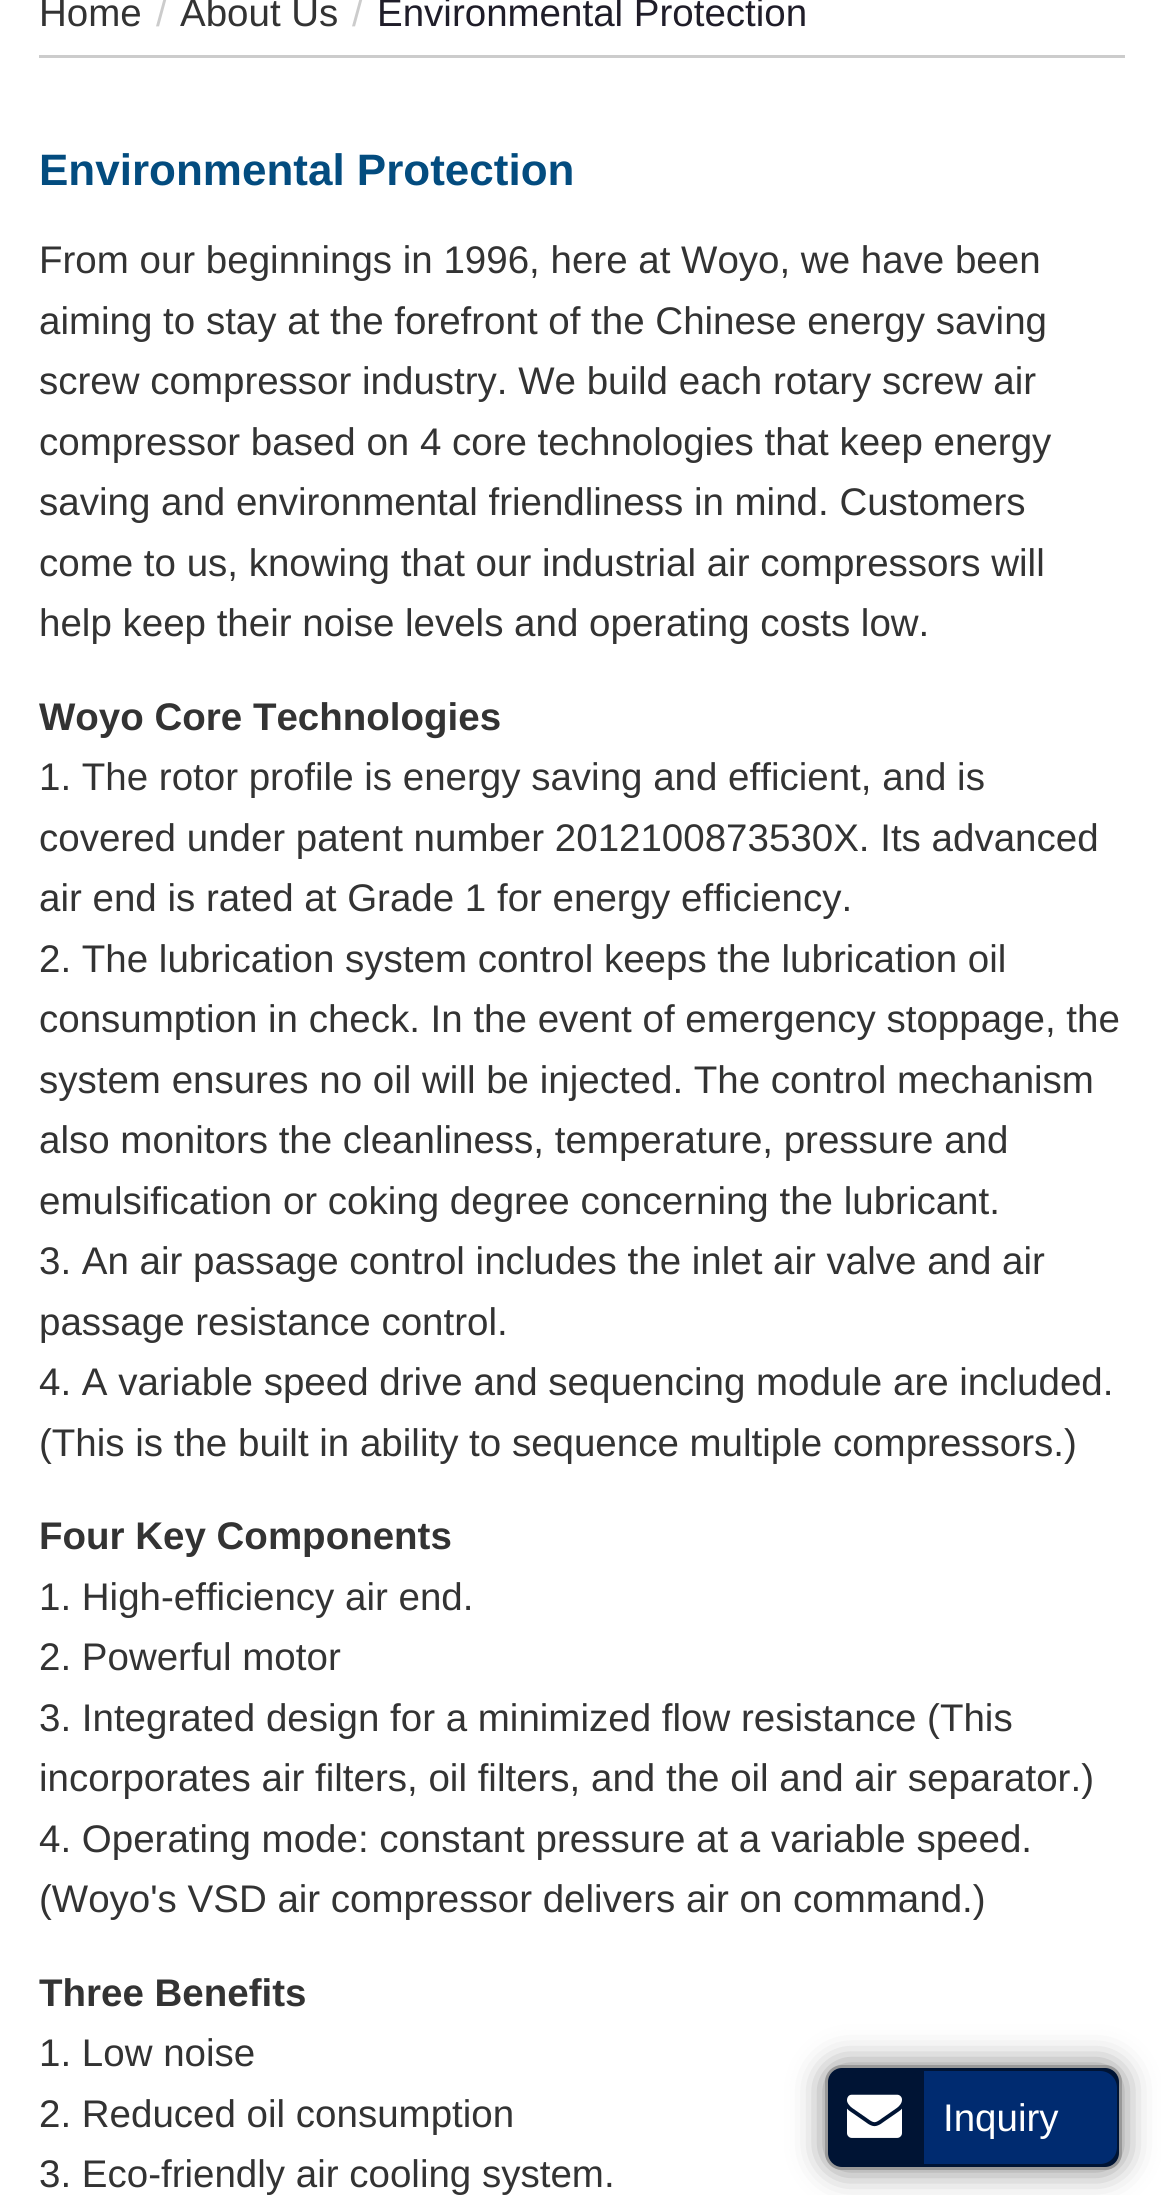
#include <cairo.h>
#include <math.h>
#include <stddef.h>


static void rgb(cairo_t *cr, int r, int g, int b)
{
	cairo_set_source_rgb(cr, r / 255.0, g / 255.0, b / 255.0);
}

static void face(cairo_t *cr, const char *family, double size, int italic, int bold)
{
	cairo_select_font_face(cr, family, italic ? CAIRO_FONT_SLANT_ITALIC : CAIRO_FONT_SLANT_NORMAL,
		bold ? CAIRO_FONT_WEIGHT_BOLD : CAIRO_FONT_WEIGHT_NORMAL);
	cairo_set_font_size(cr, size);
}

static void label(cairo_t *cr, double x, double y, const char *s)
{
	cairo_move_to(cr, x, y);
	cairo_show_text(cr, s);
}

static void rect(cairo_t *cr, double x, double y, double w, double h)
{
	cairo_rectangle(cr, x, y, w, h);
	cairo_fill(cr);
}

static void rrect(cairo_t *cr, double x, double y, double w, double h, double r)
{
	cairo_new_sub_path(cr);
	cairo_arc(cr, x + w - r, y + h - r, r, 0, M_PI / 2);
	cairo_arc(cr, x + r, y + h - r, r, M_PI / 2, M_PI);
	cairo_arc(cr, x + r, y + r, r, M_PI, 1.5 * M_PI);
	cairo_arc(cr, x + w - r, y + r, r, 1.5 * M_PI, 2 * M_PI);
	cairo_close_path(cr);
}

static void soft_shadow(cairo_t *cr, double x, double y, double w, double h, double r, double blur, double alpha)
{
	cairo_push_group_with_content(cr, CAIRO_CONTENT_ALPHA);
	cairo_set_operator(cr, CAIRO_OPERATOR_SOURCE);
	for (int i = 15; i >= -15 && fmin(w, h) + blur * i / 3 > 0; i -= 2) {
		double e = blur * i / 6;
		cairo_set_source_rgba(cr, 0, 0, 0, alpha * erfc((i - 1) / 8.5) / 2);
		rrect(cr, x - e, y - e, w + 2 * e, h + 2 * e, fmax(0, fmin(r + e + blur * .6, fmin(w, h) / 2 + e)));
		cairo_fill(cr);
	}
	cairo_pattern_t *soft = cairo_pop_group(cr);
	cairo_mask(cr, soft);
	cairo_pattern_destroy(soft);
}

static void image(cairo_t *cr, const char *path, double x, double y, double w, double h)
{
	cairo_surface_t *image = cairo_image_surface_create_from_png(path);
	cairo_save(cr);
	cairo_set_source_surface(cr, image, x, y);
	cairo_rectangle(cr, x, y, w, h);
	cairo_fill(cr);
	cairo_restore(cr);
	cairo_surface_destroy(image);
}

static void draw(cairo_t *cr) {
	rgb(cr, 255, 255, 255);
	cairo_paint(cr);
	rgb(cr, 204, 204, 204);
	rect(cr, 39, 55, 1086, 3);
	face(cr, "Liberation Sans", 38.5, 0, 0);
	rgb(cr, 51, 51, 51);
	label(cr, 39, 26, "Home");
	rgb(cr, 204, 204, 204);
	label(cr, 156, 26, "/");
	rgb(cr, 51, 51, 51);
	label(cr, 180, 26, "About Us");
	rgb(cr, 204, 204, 204);
	label(cr, 352, 26, "/");
	rgb(cr, 31, 29, 41);
	label(cr, 377, 26, "Environmental Protection");
	face(cr, "Liberation Sans", 44, 0, 1);
	rgb(cr, 3, 76, 127);
	label(cr, 39, 185, "Environmental Protection");
	face(cr, "Liberation Sans", 38.5, 0, 0);
	rgb(cr, 51, 51, 51);
	label(cr, 39, 273, "From our beginnings in 1996, here at Woyo, we have been");
	label(cr, 39, 334, "aiming to stay at the forefront of the Chinese energy saving");
	label(cr, 39, 394, "screw compressor industry. We build each rotary screw air");
	label(cr, 39, 455, "compressor based on 4 core technologies that keep energy");
	label(cr, 39, 515, "saving and environmental friendliness in mind. Customers");
	label(cr, 39, 576, "come to us, knowing that our industrial air compressors will");
	label(cr, 39, 636, "help keep their noise levels and operating costs low.");
	face(cr, "Liberation Sans", 38.5, 0, 1);
	label(cr, 39, 730, "Woyo Core Technologies");
	face(cr, "Liberation Sans", 38.5, 0, 0);
	label(cr, 39, 790, "1. The rotor profile is energy saving and efficient, and is");
	label(cr, 39, 851, "covered under patent number 2012100873530X. Its advanced");
	label(cr, 39, 911, "air end is rated at Grade 1 for energy efficiency.");
	label(cr, 39, 972, "2. The lubrication system control keeps the lubrication oil");
	label(cr, 39, 1032, "consumption in check. In the event of emergency stoppage, the");
	label(cr, 39, 1093, "system ensures no oil will be injected. The control mechanism");
	label(cr, 39, 1153, "also monitors the cleanliness, temperature, pressure and");
	label(cr, 39, 1214, "emulsification or coking degree concerning the lubricant.");
	label(cr, 39, 1274, "3. An air passage control includes the inlet air valve and air");
	label(cr, 39, 1335, "passage resistance control.");
	label(cr, 39, 1395, "4. A variable speed drive and sequencing module are included.");
	label(cr, 39, 1456, "(This is the built in ability to sequence multiple compressors.)");
	face(cr, "Liberation Sans", 38.5, 0, 1);
	label(cr, 39, 1549, "Four Key Components");
	face(cr, "Liberation Sans", 38.5, 0, 0);
	label(cr, 39, 1610, "1. High-efficiency air end.");
	label(cr, 39, 1670, "2. Powerful motor");
	label(cr, 39, 1731, "3. Integrated design for a minimized flow resistance (This");
	label(cr, 39, 1791, "incorporates air filters, oil filters, and the oil and air separator.)");
	label(cr, 39, 1852, "4. Operating mode: constant pressure at a variable speed.");
	label(cr, 39, 1912, "(Woyo's VSD air compressor delivers air on command.)");
	face(cr, "Liberation Sans", 38.5, 0, 1);
	label(cr, 39, 2006, "Three Benefits");
	face(cr, "Liberation Sans", 38.5, 0, 0);
	label(cr, 39, 2066, "1. Low noise");
	label(cr, 39, 2127, "2. Reduced oil consumption");
	label(cr, 39, 2187, "3. Eco-friendly air cooling system.");
	rgb(cr, 0, 0, 0);
	soft_shadow(cr, 825, 2065, 297, 105, 17, 16.5, 0.5);
	rgb(cr, 0, 20, 52);
	rrect(cr, 826.5, 2066.5, 294, 102, 15.5);
	cairo_fill_preserve(cr);
	rgb(cr, 153, 153, 153);
	cairo_set_line_width(cr, 3);
	cairo_stroke(cr);
	image(cr, "image0.png", 847, 2094, 55, 44);
	rgb(cr, 0, 43, 112);
	cairo_new_path(cr);
	cairo_move_to(cr, 924, 2071);
	cairo_line_to(cr, 1100, 2071);
	cairo_curve_to(cr, 1109.5, 2071, 1117, 2078.5, 1117, 2088);
	cairo_line_to(cr, 1117, 2147);
	cairo_curve_to(cr, 1117, 2156.5, 1109.5, 2164, 1100, 2164);
	cairo_line_to(cr, 924, 2164);
	cairo_close_path(cr);
	cairo_fill(cr);
	rgb(cr, 255, 255, 255);
	label(cr, 943, 2131, "Inquiry");
}

int main(void) {
	cairo_surface_t *surface = cairo_image_surface_create(CAIRO_FORMAT_RGB24, 1161, 2195);
	cairo_t *cr = cairo_create(surface);
	cairo_font_options_t *options = cairo_font_options_create();
	cairo_font_options_set_hint_metrics(options, CAIRO_HINT_METRICS_OFF);
	cairo_font_options_set_hint_style(options, CAIRO_HINT_STYLE_NONE);
	cairo_set_font_options(cr, options);
	cairo_set_miter_limit(cr, 4);
	draw(cr);
	cairo_surface_write_to_png(surface, "render.png");
	cairo_font_options_destroy(options);
	cairo_destroy(cr);
	cairo_surface_destroy(surface);
	return 0;
}
